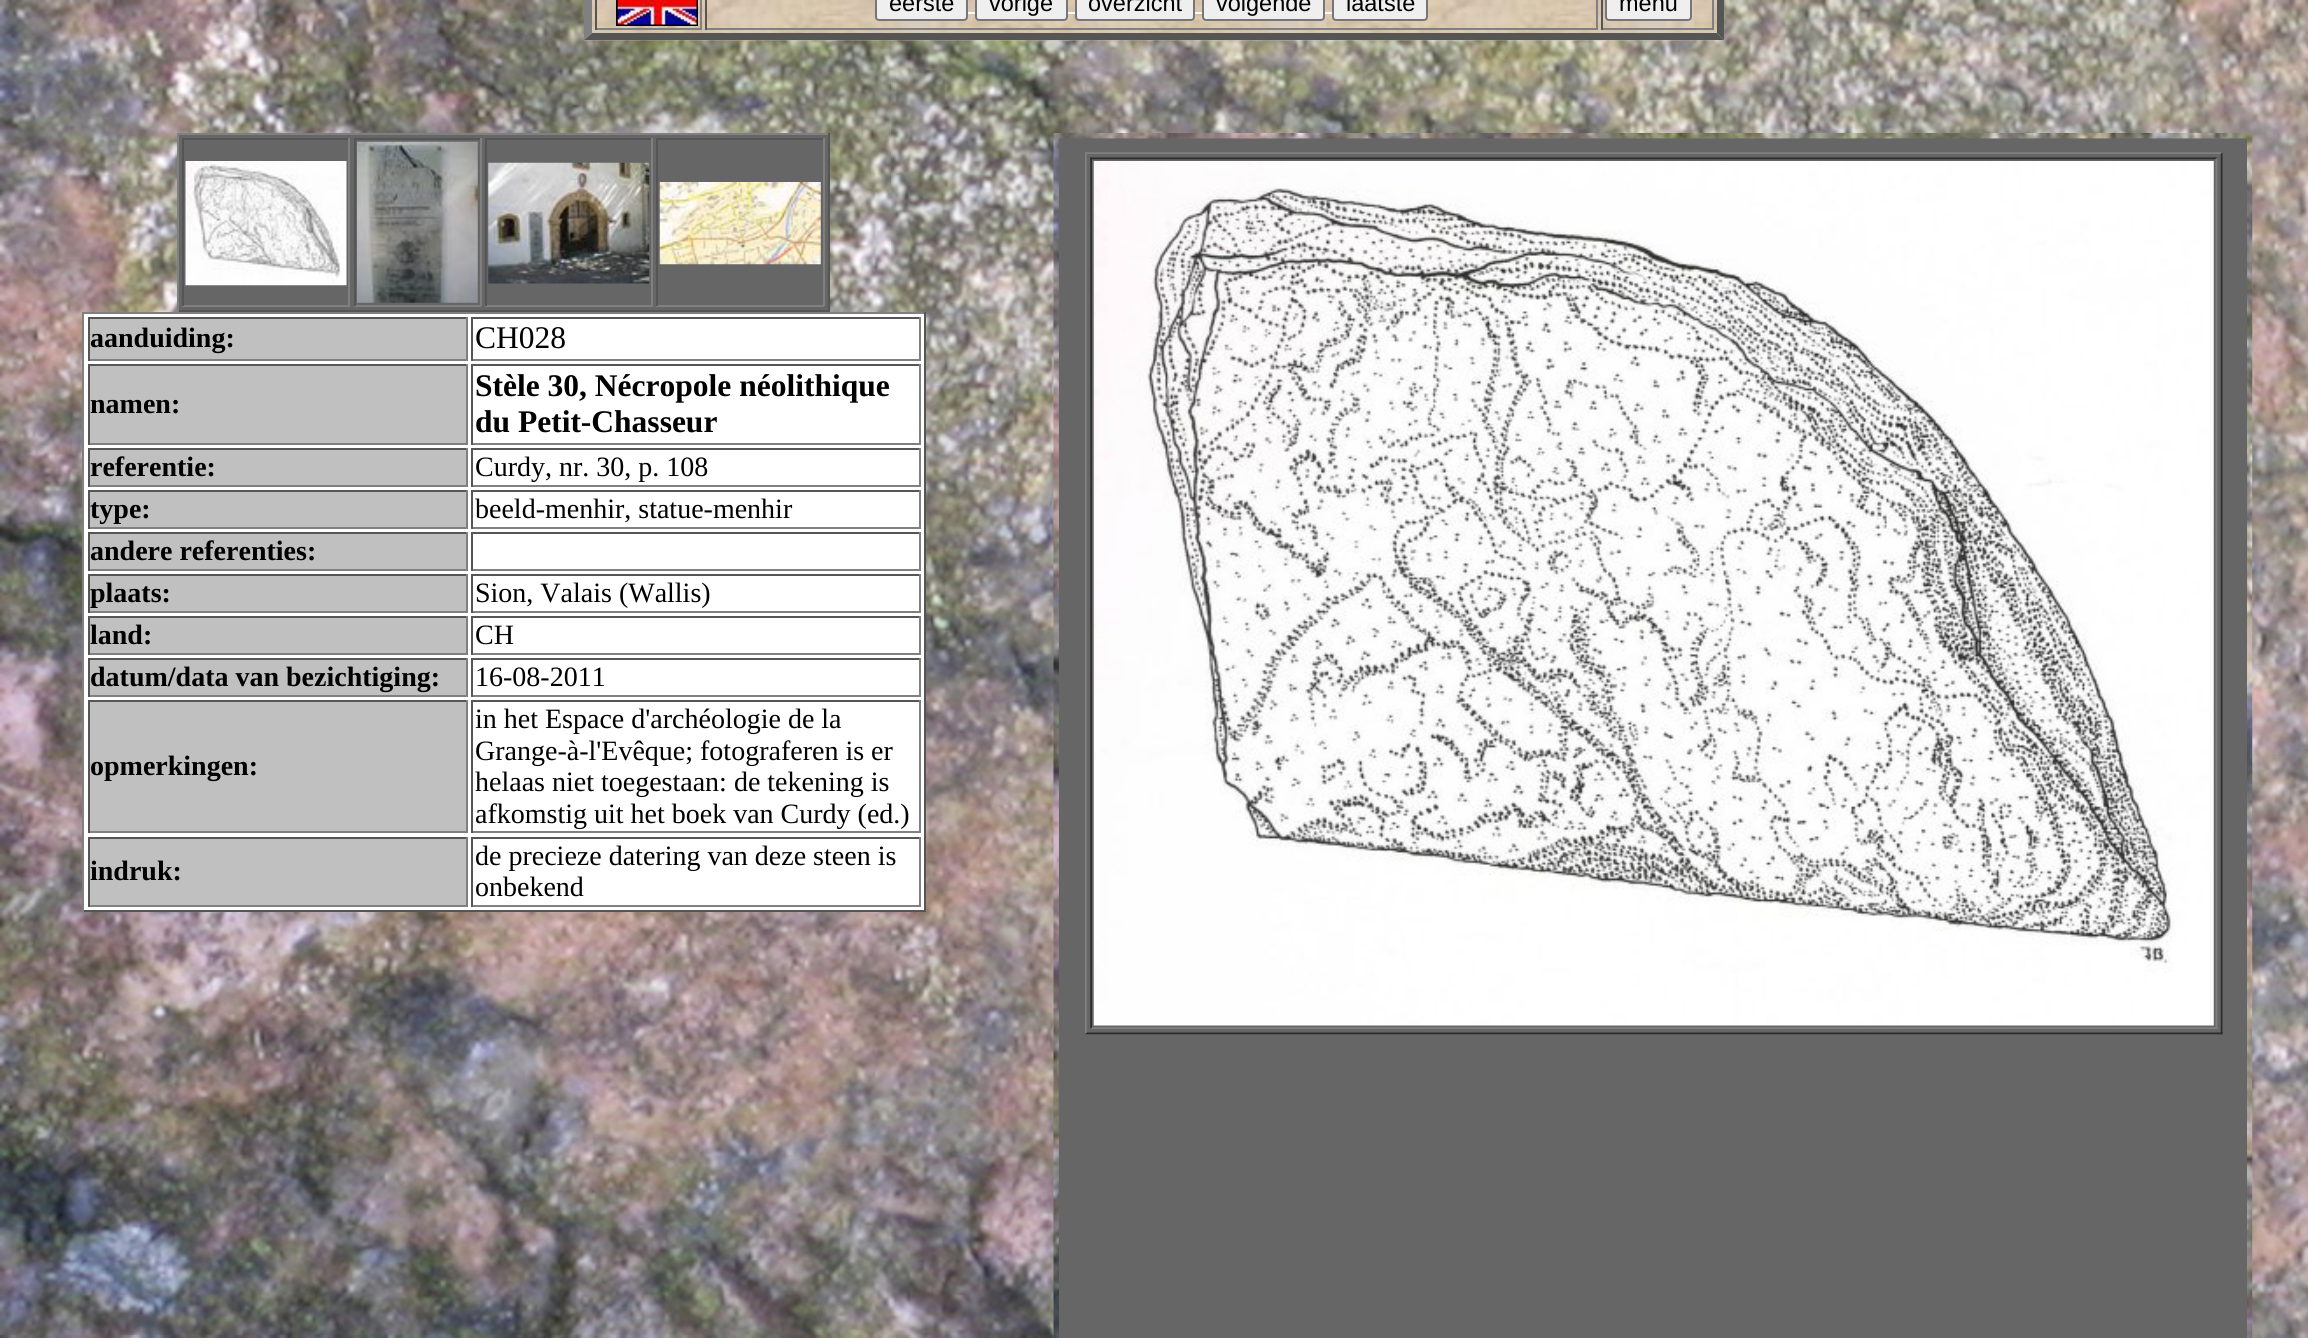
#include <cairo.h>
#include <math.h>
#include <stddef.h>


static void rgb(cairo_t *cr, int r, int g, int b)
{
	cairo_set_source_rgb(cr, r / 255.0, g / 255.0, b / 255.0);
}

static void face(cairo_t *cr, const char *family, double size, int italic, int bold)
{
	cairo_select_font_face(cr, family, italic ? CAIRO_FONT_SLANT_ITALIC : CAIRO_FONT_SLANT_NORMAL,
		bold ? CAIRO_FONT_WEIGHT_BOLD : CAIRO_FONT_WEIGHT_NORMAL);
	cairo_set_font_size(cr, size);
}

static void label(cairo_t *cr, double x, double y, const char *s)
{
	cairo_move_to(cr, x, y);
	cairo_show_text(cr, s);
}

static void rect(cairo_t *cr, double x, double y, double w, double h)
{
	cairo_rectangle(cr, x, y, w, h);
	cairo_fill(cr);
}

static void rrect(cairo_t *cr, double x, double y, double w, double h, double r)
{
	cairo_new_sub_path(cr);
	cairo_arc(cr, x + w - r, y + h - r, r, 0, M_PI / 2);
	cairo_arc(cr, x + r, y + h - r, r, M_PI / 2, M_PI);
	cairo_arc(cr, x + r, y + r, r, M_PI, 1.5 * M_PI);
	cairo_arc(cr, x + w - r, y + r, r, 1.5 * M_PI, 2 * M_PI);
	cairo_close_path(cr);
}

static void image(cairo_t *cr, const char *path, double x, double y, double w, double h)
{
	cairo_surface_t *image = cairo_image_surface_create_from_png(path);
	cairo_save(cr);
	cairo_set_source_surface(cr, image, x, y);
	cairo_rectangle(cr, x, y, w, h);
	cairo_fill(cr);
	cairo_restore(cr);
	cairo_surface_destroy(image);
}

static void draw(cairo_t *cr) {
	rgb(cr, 255, 255, 255);
	cairo_paint(cr);
	image(cr, "image0.png", 0, 0, 2308, 1338);
	image(cr, "image1.png", 584, 0, 1140, 41);
	rgb(cr, 85, 85, 85);
	cairo_new_path(cr);
	cairo_move_to(cr, 1724, -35);
	cairo_line_to(cr, 1724, 40);
	cairo_line_to(cr, 1717, 33);
	cairo_line_to(cr, 1717, -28);
	cairo_close_path(cr);
	cairo_fill(cr);
	cairo_new_path(cr);
	cairo_move_to(cr, 1724, 40);
	cairo_line_to(cr, 584, 40);
	cairo_line_to(cr, 592, 33);
	cairo_line_to(cr, 1717, 33);
	cairo_close_path(cr);
	cairo_fill(cr);
	rgb(cr, 128, 128, 128);
	cairo_new_path(cr);
	cairo_move_to(cr, 584, 40);
	cairo_line_to(cr, 584, -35);
	cairo_line_to(cr, 592, -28);
	cairo_line_to(cr, 592, 33);
	cairo_close_path(cr);
	cairo_fill(cr);
	rect(cr, 700, 0, 2, 30);
	rect(cr, 595, 28, 107, 2);
	rgb(cr, 85, 85, 85);
	rect(cr, 595, 0, 2, 30);
	cairo_rectangle(cr, 617, -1, 80, 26);
	rgb(cr, 0, 0, 0);
	cairo_stroke(cr);
	image(cr, "image2.png", 617, 0, 80, 25);
	rgb(cr, 128, 128, 128);
	rect(cr, 1596, 0, 2, 30);
	rect(cr, 705, 28, 893, 2);
	rgb(cr, 85, 85, 85);
	rect(cr, 705, 0, 2, 30);
	rgb(cr, 239, 239, 239);
	rrect(cr, 876, -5, 91, 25, 3);
	cairo_fill_preserve(cr);
	rgb(cr, 118, 118, 118);
	cairo_stroke(cr);
	face(cr, "Liberation Sans", 23.5, 0, 0);
	rgb(cr, 0, 0, 0);
	label(cr, 889, 11, "eerste");
	rgb(cr, 239, 239, 239);
	rrect(cr, 976, -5, 91, 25, 3);
	cairo_fill_preserve(cr);
	rgb(cr, 118, 118, 118);
	cairo_stroke(cr);
	rgb(cr, 0, 0, 0);
	label(cr, 989, 11, "vorige");
	rgb(cr, 239, 239, 239);
	rrect(cr, 1076, -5, 118, 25, 3);
	cairo_fill_preserve(cr);
	rgb(cr, 118, 118, 118);
	cairo_stroke(cr);
	rgb(cr, 0, 0, 0);
	label(cr, 1088, 11, "overzicht");
	rgb(cr, 239, 239, 239);
	rrect(cr, 1203, -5, 121, 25, 3);
	cairo_fill_preserve(cr);
	rgb(cr, 118, 118, 118);
	cairo_stroke(cr);
	rgb(cr, 0, 0, 0);
	label(cr, 1216, 11, "volgende");
	rgb(cr, 239, 239, 239);
	rrect(cr, 1333, -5, 94, 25, 3);
	cairo_fill_preserve(cr);
	rgb(cr, 118, 118, 118);
	cairo_stroke(cr);
	rgb(cr, 0, 0, 0);
	label(cr, 1346, 11, "laatste");
	rgb(cr, 255, 255, 255);
	rect(cr, 968, 12, 7, 2);
	rect(cr, 1068, 12, 7, 2);
	rect(cr, 1195, 12, 7, 2);
	rect(cr, 1325, 12, 7, 2);
	rgb(cr, 128, 128, 128);
	rect(cr, 1712, 0, 2, 30);
	rect(cr, 1601, 28, 112, 2);
	rgb(cr, 85, 85, 85);
	rect(cr, 1601, 0, 2, 30);
	rgb(cr, 239, 239, 239);
	rrect(cr, 1606, -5, 85, 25, 3);
	cairo_fill_preserve(cr);
	rgb(cr, 118, 118, 118);
	cairo_stroke(cr);
	rgb(cr, 0, 0, 0);
	label(cr, 1619, 11, "menu");
	rgb(cr, 102, 102, 102);
	rect(cr, 179, 135, 649, 175);
	rgb(cr, 128, 128, 128);
	rect(cr, 177, 133, 653, 2);
	rgb(cr, 85, 85, 85);
	rect(cr, 828, 133, 2, 179);
	rect(cr, 177, 310, 653, 2);
	rgb(cr, 128, 128, 128);
	rect(cr, 177, 133, 2, 179);
	rgb(cr, 85, 85, 85);
	rect(cr, 182, 138, 168, 2);
	rgb(cr, 128, 128, 128);
	rect(cr, 348, 138, 2, 168);
	rect(cr, 182, 305, 168, 2);
	rgb(cr, 85, 85, 85);
	rect(cr, 182, 138, 2, 168);
	image(cr, "image3.png", 185, 161, 162, 125);
	rect(cr, 354, 138, 127, 2);
	rgb(cr, 128, 128, 128);
	rect(cr, 480, 138, 2, 168);
	rect(cr, 354, 305, 127, 2);
	rgb(cr, 85, 85, 85);
	rect(cr, 354, 138, 2, 168);
	image(cr, "image4.png", 357, 141, 121, 162);
	rect(cr, 485, 138, 168, 2);
	rgb(cr, 128, 128, 128);
	rect(cr, 651, 138, 2, 168);
	rect(cr, 485, 305, 168, 2);
	rgb(cr, 85, 85, 85);
	rect(cr, 485, 138, 2, 168);
	image(cr, "image5.png", 488, 162, 162, 122);
	rect(cr, 656, 138, 168, 2);
	rgb(cr, 128, 128, 128);
	rect(cr, 823, 138, 2, 168);
	rect(cr, 656, 305, 168, 2);
	rgb(cr, 85, 85, 85);
	rect(cr, 656, 138, 2, 168);
	image(cr, "image6.png", 659, 182, 162, 83);
	rgb(cr, 255, 255, 255);
	rect(cr, 84, 314, 840, 596);
	rgb(cr, 128, 128, 128);
	rect(cr, 82, 312, 844, 2);
	rgb(cr, 85, 85, 85);
	rect(cr, 924, 312, 2, 600);
	rect(cr, 82, 910, 844, 2);
	rgb(cr, 128, 128, 128);
	rect(cr, 82, 312, 2, 600);
	rgb(cr, 192, 192, 192);
	rect(cr, 90, 319, 376, 40);
	rgb(cr, 85, 85, 85);
	rect(cr, 88, 317, 379, 2);
	rgb(cr, 128, 128, 128);
	rect(cr, 466, 317, 2, 44);
	rect(cr, 88, 359, 379, 2);
	rgb(cr, 85, 85, 85);
	rect(cr, 88, 317, 2, 44);
	face(cr, "Liberation Serif", 28, 0, 1);
	rgb(cr, 0, 0, 0);
	label(cr, 90, 347, "aanduiding:");
	rgb(cr, 85, 85, 85);
	rect(cr, 471, 317, 450, 2);
	rgb(cr, 128, 128, 128);
	rect(cr, 919, 317, 2, 44);
	rect(cr, 471, 359, 450, 2);
	rgb(cr, 85, 85, 85);
	rect(cr, 471, 317, 2, 44);
	face(cr, "Liberation Serif", 31.5, 0, 0);
	rgb(cr, 0, 0, 0);
	label(cr, 475, 348, "CH028");
	rgb(cr, 192, 192, 192);
	rect(cr, 90, 366, 376, 77);
	rgb(cr, 85, 85, 85);
	rect(cr, 88, 364, 379, 2);
	rgb(cr, 128, 128, 128);
	rect(cr, 466, 364, 2, 81);
	rect(cr, 88, 443, 379, 2);
	rgb(cr, 85, 85, 85);
	rect(cr, 88, 364, 2, 81);
	face(cr, "Liberation Serif", 28, 0, 1);
	rgb(cr, 0, 0, 0);
	label(cr, 90, 413, "namen:");
	rgb(cr, 85, 85, 85);
	rect(cr, 471, 364, 450, 2);
	rgb(cr, 128, 128, 128);
	rect(cr, 919, 364, 2, 81);
	rect(cr, 471, 443, 450, 2);
	rgb(cr, 85, 85, 85);
	rect(cr, 471, 364, 2, 81);
	face(cr, "Liberation Serif", 31.5, 0, 1);
	rgb(cr, 0, 0, 0);
	label(cr, 475, 396, "Stèle 30, Nécropole néolithique");
	label(cr, 475, 432, "du Petit-Chasseur");
	rgb(cr, 192, 192, 192);
	rect(cr, 90, 450, 376, 35);
	rgb(cr, 85, 85, 85);
	rect(cr, 88, 448, 379, 2);
	rgb(cr, 128, 128, 128);
	rect(cr, 466, 448, 2, 39);
	rect(cr, 88, 485, 379, 2);
	rgb(cr, 85, 85, 85);
	rect(cr, 88, 448, 2, 39);
	face(cr, "Liberation Serif", 28, 0, 1);
	rgb(cr, 0, 0, 0);
	label(cr, 90, 476, "referentie:");
	rgb(cr, 85, 85, 85);
	rect(cr, 471, 448, 450, 2);
	rgb(cr, 128, 128, 128);
	rect(cr, 919, 448, 2, 39);
	rect(cr, 471, 485, 450, 2);
	rgb(cr, 85, 85, 85);
	rect(cr, 471, 448, 2, 39);
	face(cr, "Liberation Serif", 28, 0, 0);
	rgb(cr, 0, 0, 0);
	label(cr, 475, 476, "Curdy, nr. 30, p. 108");
	rgb(cr, 192, 192, 192);
	rect(cr, 90, 492, 376, 35);
	rgb(cr, 85, 85, 85);
	rect(cr, 88, 490, 379, 2);
	rgb(cr, 128, 128, 128);
	rect(cr, 466, 490, 2, 39);
	rect(cr, 88, 527, 379, 2);
	rgb(cr, 85, 85, 85);
	rect(cr, 88, 490, 2, 39);
	face(cr, "Liberation Serif", 28, 0, 1);
	rgb(cr, 0, 0, 0);
	label(cr, 90, 518, "type:");
	rgb(cr, 85, 85, 85);
	rect(cr, 471, 490, 450, 2);
	rgb(cr, 128, 128, 128);
	rect(cr, 919, 490, 2, 39);
	rect(cr, 471, 527, 450, 2);
	rgb(cr, 85, 85, 85);
	rect(cr, 471, 490, 2, 39);
	face(cr, "Liberation Serif", 28, 0, 0);
	rgb(cr, 0, 0, 0);
	label(cr, 475, 518, "beeld-menhir, statue-menhir");
	rgb(cr, 192, 192, 192);
	rect(cr, 90, 534, 376, 35);
	rgb(cr, 85, 85, 85);
	rect(cr, 88, 532, 379, 2);
	rgb(cr, 128, 128, 128);
	rect(cr, 466, 532, 2, 39);
	rect(cr, 88, 569, 379, 2);
	rgb(cr, 85, 85, 85);
	rect(cr, 88, 532, 2, 39);
	face(cr, "Liberation Serif", 28, 0, 1);
	rgb(cr, 0, 0, 0);
	label(cr, 90, 560, "andere referenties:");
	rgb(cr, 85, 85, 85);
	rect(cr, 471, 532, 450, 2);
	rgb(cr, 128, 128, 128);
	rect(cr, 919, 532, 2, 39);
	rect(cr, 471, 569, 450, 2);
	rgb(cr, 85, 85, 85);
	rect(cr, 471, 532, 2, 39);
	rgb(cr, 192, 192, 192);
	rect(cr, 90, 576, 376, 35);
	rgb(cr, 85, 85, 85);
	rect(cr, 88, 574, 379, 2);
	rgb(cr, 128, 128, 128);
	rect(cr, 466, 574, 2, 39);
	rect(cr, 88, 611, 379, 2);
	rgb(cr, 85, 85, 85);
	rect(cr, 88, 574, 2, 39);
	rgb(cr, 0, 0, 0);
	label(cr, 90, 602, "plaats:");
	rgb(cr, 85, 85, 85);
	rect(cr, 471, 574, 450, 2);
	rgb(cr, 128, 128, 128);
	rect(cr, 919, 574, 2, 39);
	rect(cr, 471, 611, 450, 2);
	rgb(cr, 85, 85, 85);
	rect(cr, 471, 574, 2, 39);
	face(cr, "Liberation Serif", 28, 0, 0);
	rgb(cr, 0, 0, 0);
	label(cr, 475, 602, "Sion, Valais (Wallis)");
	rgb(cr, 192, 192, 192);
	rect(cr, 90, 618, 376, 35);
	rgb(cr, 85, 85, 85);
	rect(cr, 88, 616, 379, 2);
	rgb(cr, 128, 128, 128);
	rect(cr, 466, 616, 2, 39);
	rect(cr, 88, 653, 379, 2);
	rgb(cr, 85, 85, 85);
	rect(cr, 88, 616, 2, 39);
	face(cr, "Liberation Serif", 28, 0, 1);
	rgb(cr, 0, 0, 0);
	label(cr, 90, 644, "land:");
	rgb(cr, 85, 85, 85);
	rect(cr, 471, 616, 450, 2);
	rgb(cr, 128, 128, 128);
	rect(cr, 919, 616, 2, 39);
	rect(cr, 471, 653, 450, 2);
	rgb(cr, 85, 85, 85);
	rect(cr, 471, 616, 2, 39);
	face(cr, "Liberation Serif", 28, 0, 0);
	rgb(cr, 0, 0, 0);
	label(cr, 475, 644, "CH");
	rgb(cr, 192, 192, 192);
	rect(cr, 90, 660, 376, 35);
	rgb(cr, 85, 85, 85);
	rect(cr, 88, 658, 379, 2);
	rgb(cr, 128, 128, 128);
	rect(cr, 466, 658, 2, 39);
	rect(cr, 88, 695, 379, 2);
	rgb(cr, 85, 85, 85);
	rect(cr, 88, 658, 2, 39);
	face(cr, "Liberation Serif", 28, 0, 1);
	rgb(cr, 0, 0, 0);
	label(cr, 90, 686, "datum/data van bezichtiging:");
	rgb(cr, 85, 85, 85);
	rect(cr, 471, 658, 450, 2);
	rgb(cr, 128, 128, 128);
	rect(cr, 919, 658, 2, 39);
	rect(cr, 471, 695, 450, 2);
	rgb(cr, 85, 85, 85);
	rect(cr, 471, 658, 2, 39);
	face(cr, "Liberation Serif", 28, 0, 0);
	rgb(cr, 0, 0, 0);
	label(cr, 475, 686, "16-08-2011");
	rgb(cr, 192, 192, 192);
	rect(cr, 90, 702, 376, 129);
	rgb(cr, 85, 85, 85);
	rect(cr, 88, 700, 379, 2);
	rgb(cr, 128, 128, 128);
	rect(cr, 466, 700, 2, 133);
	rect(cr, 88, 831, 379, 2);
	rgb(cr, 85, 85, 85);
	rect(cr, 88, 700, 2, 133);
	face(cr, "Liberation Serif", 28, 0, 1);
	rgb(cr, 0, 0, 0);
	label(cr, 90, 775, "opmerkingen:");
	rgb(cr, 85, 85, 85);
	rect(cr, 471, 700, 450, 2);
	rgb(cr, 128, 128, 128);
	rect(cr, 919, 700, 2, 133);
	rect(cr, 471, 831, 450, 2);
	rgb(cr, 85, 85, 85);
	rect(cr, 471, 700, 2, 133);
	face(cr, "Liberation Serif", 28, 0, 0);
	rgb(cr, 0, 0, 0);
	label(cr, 475, 728, "in het Espace d'archéologie de la");
	label(cr, 475, 760, "Grange-à-l'Evêque; fotograferen is er");
	label(cr, 475, 791, "helaas niet toegestaan: de tekening is");
	label(cr, 475, 823, "afkomstig uit het boek van Curdy (ed.)");
	rgb(cr, 192, 192, 192);
	rect(cr, 90, 839, 376, 66);
	rgb(cr, 85, 85, 85);
	rect(cr, 88, 837, 379, 2);
	rgb(cr, 128, 128, 128);
	rect(cr, 466, 837, 2, 70);
	rect(cr, 88, 905, 379, 2);
	rgb(cr, 85, 85, 85);
	rect(cr, 88, 837, 2, 70);
	face(cr, "Liberation Serif", 28, 0, 1);
	rgb(cr, 0, 0, 0);
	label(cr, 90, 880, "indruk:");
	rgb(cr, 85, 85, 85);
	rect(cr, 471, 837, 450, 2);
	rgb(cr, 128, 128, 128);
	rect(cr, 919, 837, 2, 70);
	rect(cr, 471, 905, 450, 2);
	rgb(cr, 85, 85, 85);
	rect(cr, 471, 837, 2, 70);
	face(cr, "Liberation Serif", 28, 0, 0);
	rgb(cr, 0, 0, 0);
	label(cr, 475, 865, "de precieze datering van deze steen is");
	label(cr, 475, 896, "onbekend");
	image(cr, "image7.png", 1053, 133, 1200, 1205);
	image(cr, "image8.png", 1058, 138, 1189, 1200);
}

int main(void) {
	cairo_surface_t *surface = cairo_image_surface_create(CAIRO_FORMAT_RGB24, 2308, 1338);
	cairo_t *cr = cairo_create(surface);
	cairo_font_options_t *options = cairo_font_options_create();
	cairo_font_options_set_hint_metrics(options, CAIRO_HINT_METRICS_OFF);
	cairo_font_options_set_hint_style(options, CAIRO_HINT_STYLE_NONE);
	cairo_set_font_options(cr, options);
	cairo_set_miter_limit(cr, 4);
	draw(cr);
	cairo_surface_write_to_png(surface, "render.png");
	cairo_font_options_destroy(options);
	cairo_destroy(cr);
	cairo_surface_destroy(surface);
	return 0;
}
